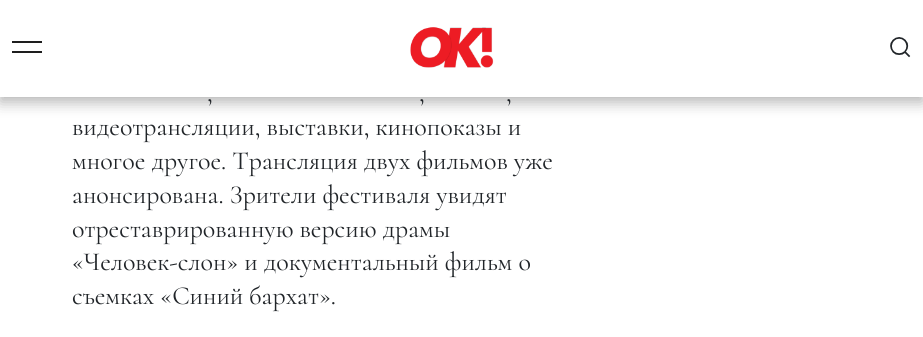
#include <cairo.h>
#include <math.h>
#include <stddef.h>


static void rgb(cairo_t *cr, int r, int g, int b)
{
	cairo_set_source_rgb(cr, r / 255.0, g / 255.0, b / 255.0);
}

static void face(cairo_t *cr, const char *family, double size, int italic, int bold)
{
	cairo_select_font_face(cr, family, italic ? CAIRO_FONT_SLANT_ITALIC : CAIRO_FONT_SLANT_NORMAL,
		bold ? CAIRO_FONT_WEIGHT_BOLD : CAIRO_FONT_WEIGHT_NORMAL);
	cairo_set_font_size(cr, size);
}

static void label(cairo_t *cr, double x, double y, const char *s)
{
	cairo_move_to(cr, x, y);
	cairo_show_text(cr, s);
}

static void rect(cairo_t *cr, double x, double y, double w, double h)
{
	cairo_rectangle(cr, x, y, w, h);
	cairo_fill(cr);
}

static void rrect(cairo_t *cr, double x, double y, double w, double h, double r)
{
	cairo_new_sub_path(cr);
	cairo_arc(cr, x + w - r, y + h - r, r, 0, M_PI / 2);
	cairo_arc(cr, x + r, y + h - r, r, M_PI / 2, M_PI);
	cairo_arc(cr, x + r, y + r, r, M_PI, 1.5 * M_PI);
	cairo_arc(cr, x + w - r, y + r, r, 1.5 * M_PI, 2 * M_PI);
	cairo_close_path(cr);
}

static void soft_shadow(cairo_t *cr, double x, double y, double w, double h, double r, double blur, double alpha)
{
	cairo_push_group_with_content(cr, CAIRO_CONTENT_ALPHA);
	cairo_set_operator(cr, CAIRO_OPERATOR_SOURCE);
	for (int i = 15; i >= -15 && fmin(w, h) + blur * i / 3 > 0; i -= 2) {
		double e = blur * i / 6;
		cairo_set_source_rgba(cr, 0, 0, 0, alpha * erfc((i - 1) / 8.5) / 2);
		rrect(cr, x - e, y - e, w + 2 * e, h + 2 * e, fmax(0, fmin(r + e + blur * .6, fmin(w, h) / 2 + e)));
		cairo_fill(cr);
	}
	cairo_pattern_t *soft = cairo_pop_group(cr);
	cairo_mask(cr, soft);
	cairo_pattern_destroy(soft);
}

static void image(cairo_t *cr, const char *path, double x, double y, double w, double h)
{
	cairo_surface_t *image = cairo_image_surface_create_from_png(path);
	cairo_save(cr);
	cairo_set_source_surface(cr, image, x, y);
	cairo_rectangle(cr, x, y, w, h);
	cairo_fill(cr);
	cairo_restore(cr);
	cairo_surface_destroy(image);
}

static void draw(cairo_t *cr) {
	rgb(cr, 255, 255, 255);
	cairo_paint(cr);
	rgb(cr, 0, 0, 0);
	soft_shadow(cr, 0, 5, 923, 97, 0, 7.5, 0.3);
	rgb(cr, 255, 255, 255);
	rect(cr, 0, 0, 923, 97);
	rgb(cr, 30, 30, 30);
	rect(cr, 12, 41, 30, 2);
	rect(cr, 12, 51, 30, 2);
	image(cr, "image0.png", 410, 27, 84, 41);
	image(cr, "image1.png", 890, 37, 21, 21);
	face(cr, "Cormorant", 26, 0, 0);
	rgb(cr, 33, 37, 41);
	label(cr, 207, 101, ",");
	label(cr, 419, 101, ",");
	label(cr, 506, 101, ",");
	label(cr, 72, 135, "видеотрансляции, выставки, кинопоказы и");
	label(cr, 72, 169, "многое другое. Трансляция двух фильмов уже");
	label(cr, 72, 203, "анонсирована. Зрители фестиваля увидят");
	label(cr, 72, 237, "отреставрированную версию драмы");
	label(cr, 72, 270, "«Человек-слон» и документальный фильм о");
	label(cr, 72, 304, "съемках «Синий бархат».");
}

int main(void) {
	cairo_surface_t *surface = cairo_image_surface_create(CAIRO_FORMAT_RGB24, 923, 337);
	cairo_t *cr = cairo_create(surface);
	cairo_font_options_t *options = cairo_font_options_create();
	cairo_font_options_set_hint_metrics(options, CAIRO_HINT_METRICS_OFF);
	cairo_font_options_set_hint_style(options, CAIRO_HINT_STYLE_NONE);
	cairo_set_font_options(cr, options);
	cairo_set_miter_limit(cr, 4);
	draw(cr);
	cairo_surface_write_to_png(surface, "render.png");
	cairo_font_options_destroy(options);
	cairo_destroy(cr);
	cairo_surface_destroy(surface);
	return 0;
}
